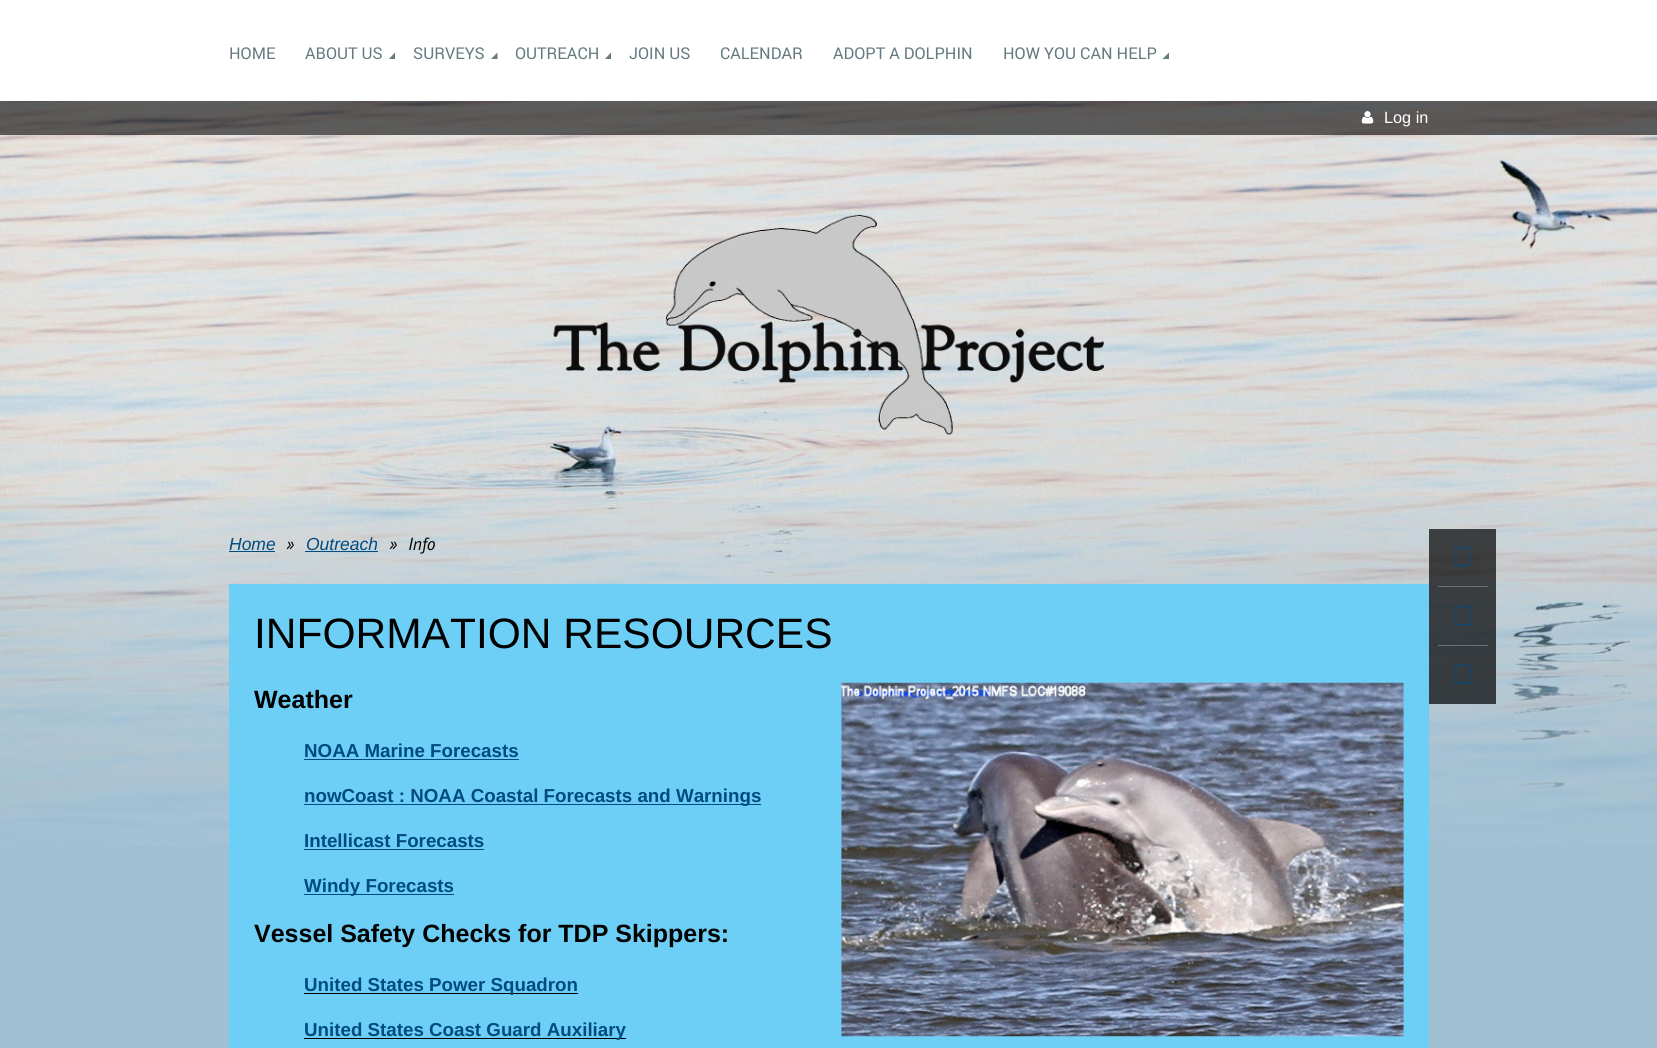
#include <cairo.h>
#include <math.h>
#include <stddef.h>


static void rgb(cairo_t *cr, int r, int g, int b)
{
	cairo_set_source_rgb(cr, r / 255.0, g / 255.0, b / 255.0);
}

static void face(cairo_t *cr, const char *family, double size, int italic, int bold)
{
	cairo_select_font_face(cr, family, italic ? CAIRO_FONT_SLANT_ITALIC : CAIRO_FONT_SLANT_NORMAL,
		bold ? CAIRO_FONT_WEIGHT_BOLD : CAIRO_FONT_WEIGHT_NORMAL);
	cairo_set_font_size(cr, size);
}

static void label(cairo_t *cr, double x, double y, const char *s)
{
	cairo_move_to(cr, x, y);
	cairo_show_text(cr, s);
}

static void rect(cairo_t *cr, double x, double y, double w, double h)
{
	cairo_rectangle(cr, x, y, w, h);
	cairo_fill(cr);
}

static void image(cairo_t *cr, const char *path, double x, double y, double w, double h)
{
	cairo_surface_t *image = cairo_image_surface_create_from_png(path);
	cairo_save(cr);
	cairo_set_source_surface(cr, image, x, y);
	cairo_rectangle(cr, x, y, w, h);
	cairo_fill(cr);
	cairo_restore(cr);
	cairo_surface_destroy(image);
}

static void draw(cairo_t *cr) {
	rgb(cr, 160, 191, 211);
	cairo_paint(cr);
	image(cr, "image0.png", 0, 101, 1657, 745);
	rgb(cr, 255, 255, 255);
	rect(cr, 0, 0, 1657, 101);
	face(cr, "Roboto", 16.25, 0, 0);
	rgb(cr, 101, 123, 128);
	label(cr, 229, 59, "HOME");
	label(cr, 305, 59, "ABOUT US");
	cairo_new_path(cr);
	cairo_move_to(cr, 395, 59);
	cairo_line_to(cr, 389, 59);
	cairo_line_to(cr, 395, 52.5);
	cairo_close_path(cr);
	cairo_fill(cr);
	label(cr, 413, 59, "SURVEYS");
	cairo_new_path(cr);
	cairo_move_to(cr, 497.5, 59);
	cairo_line_to(cr, 491, 59);
	cairo_line_to(cr, 497.5, 52.5);
	cairo_close_path(cr);
	cairo_fill(cr);
	label(cr, 515, 59, "OUTREACH");
	cairo_new_path(cr);
	cairo_move_to(cr, 611, 59);
	cairo_line_to(cr, 605, 59);
	cairo_line_to(cr, 611, 52.5);
	cairo_close_path(cr);
	cairo_fill(cr);
	label(cr, 629, 59, "JOIN US");
	label(cr, 720, 59, "CALENDAR");
	label(cr, 833, 59, "ADOPT A DOLPHIN");
	label(cr, 1003, 59, "HOW YOU CAN HELP");
	cairo_new_path(cr);
	cairo_move_to(cr, 1169, 59);
	cairo_line_to(cr, 1162.5, 59);
	cairo_line_to(cr, 1169, 52.5);
	cairo_close_path(cr);
	cairo_fill(cr);
	cairo_set_source_rgba(cr, 0, 0, 0, 0.6);
	rect(cr, 0, 101, 1657, 34);
	image(cr, "image1.png", 1361, 111, 13, 13);
	face(cr, "Liberation Sans", 16.25, 0, 0);
	rgb(cr, 255, 255, 255);
	label(cr, 1384, 123, "Log in");
	image(cr, "image2.png", 553, 214, 551, 222);
	face(cr, "Liberation Sans", 17.5, 1, 0);
	rgb(cr, 0, 75, 128);
	label(cr, 229, 550, "Home");
	rect(cr, 229, 551, 46, 1);
	face(cr, "PT Sans", 17.5, 1, 0);
	rgb(cr, 0, 0, 0);
	label(cr, 286, 550, "»");
	face(cr, "Liberation Sans", 17.5, 1, 0);
	rgb(cr, 0, 75, 128);
	label(cr, 306, 550, "Outreach");
	rect(cr, 305, 551, 73, 1);
	face(cr, "PT Sans", 17.5, 1, 0);
	rgb(cr, 0, 0, 0);
	label(cr, 389, 550, "»");
	label(cr, 408, 550, "Info");
	cairo_set_source_rgba(cr, 0, 0, 0, 0.7);
	rect(cr, 1429, 529, 67, 175);
	rgb(cr, 109, 113, 115);
	rect(cr, 1438, 586, 50, 1);
	image(cr, "image3.png", 1455, 547, 16, 20);
	rect(cr, 1438, 645, 50, 1);
	image(cr, "image4.png", 1455, 606, 16, 19);
	image(cr, "image5.png", 1455, 664, 16, 20);
	rgb(cr, 110, 207, 246);
	rect(cr, 229, 584, 1200, 464);
	face(cr, "Liberation Sans", 42.5, 0, 0);
	rgb(cr, 0, 0, 0);
	label(cr, 254, 648, "INFORMATION RESOURCES");
	face(cr, "Liberation Sans", 25, 0, 1);
	label(cr, 254, 708, "Weather");
	face(cr, "Liberation Sans", 18.75, 0, 1);
	rgb(cr, 0, 75, 128);
	label(cr, 304, 757, "NOAA Marine Forecasts");
	rect(cr, 304, 759, 215, 1);
	rect(cr, 304, 804, 457, 1);
	label(cr, 304, 802, "nowCoast : NOAA Coastal Forecasts and Warnings");
	label(cr, 304, 847, "Intellicast Forecasts");
	rect(cr, 304, 849, 180, 1);
	rect(cr, 304, 894, 150, 1);
	label(cr, 304, 892, "Windy Forecasts");
	face(cr, "Liberation Sans", 25, 0, 1);
	rgb(cr, 0, 0, 0);
	label(cr, 254, 942, "Vessel Safety Checks for TDP Skippers:");
	rect(cr, 304, 993, 274, 1);
	face(cr, "Liberation Sans", 18.75, 0, 1);
	rgb(cr, 0, 75, 128);
	label(cr, 304, 991, "United States Power Squadron");
	rgb(cr, 0, 0, 0);
	rect(cr, 304, 1038, 322, 1);
	rgb(cr, 0, 75, 128);
	label(cr, 304, 1036, "United States Coast Guard Auxiliary");
	image(cr, "image6.png", 841, 682, 563, 355);
}

int main(void) {
	cairo_surface_t *surface = cairo_image_surface_create(CAIRO_FORMAT_RGB24, 1657, 1048);
	cairo_t *cr = cairo_create(surface);
	cairo_font_options_t *options = cairo_font_options_create();
	cairo_font_options_set_hint_metrics(options, CAIRO_HINT_METRICS_OFF);
	cairo_font_options_set_hint_style(options, CAIRO_HINT_STYLE_NONE);
	cairo_set_font_options(cr, options);
	cairo_set_miter_limit(cr, 4);
	draw(cr);
	cairo_surface_write_to_png(surface, "render.png");
	cairo_font_options_destroy(options);
	cairo_destroy(cr);
	cairo_surface_destroy(surface);
	return 0;
}
